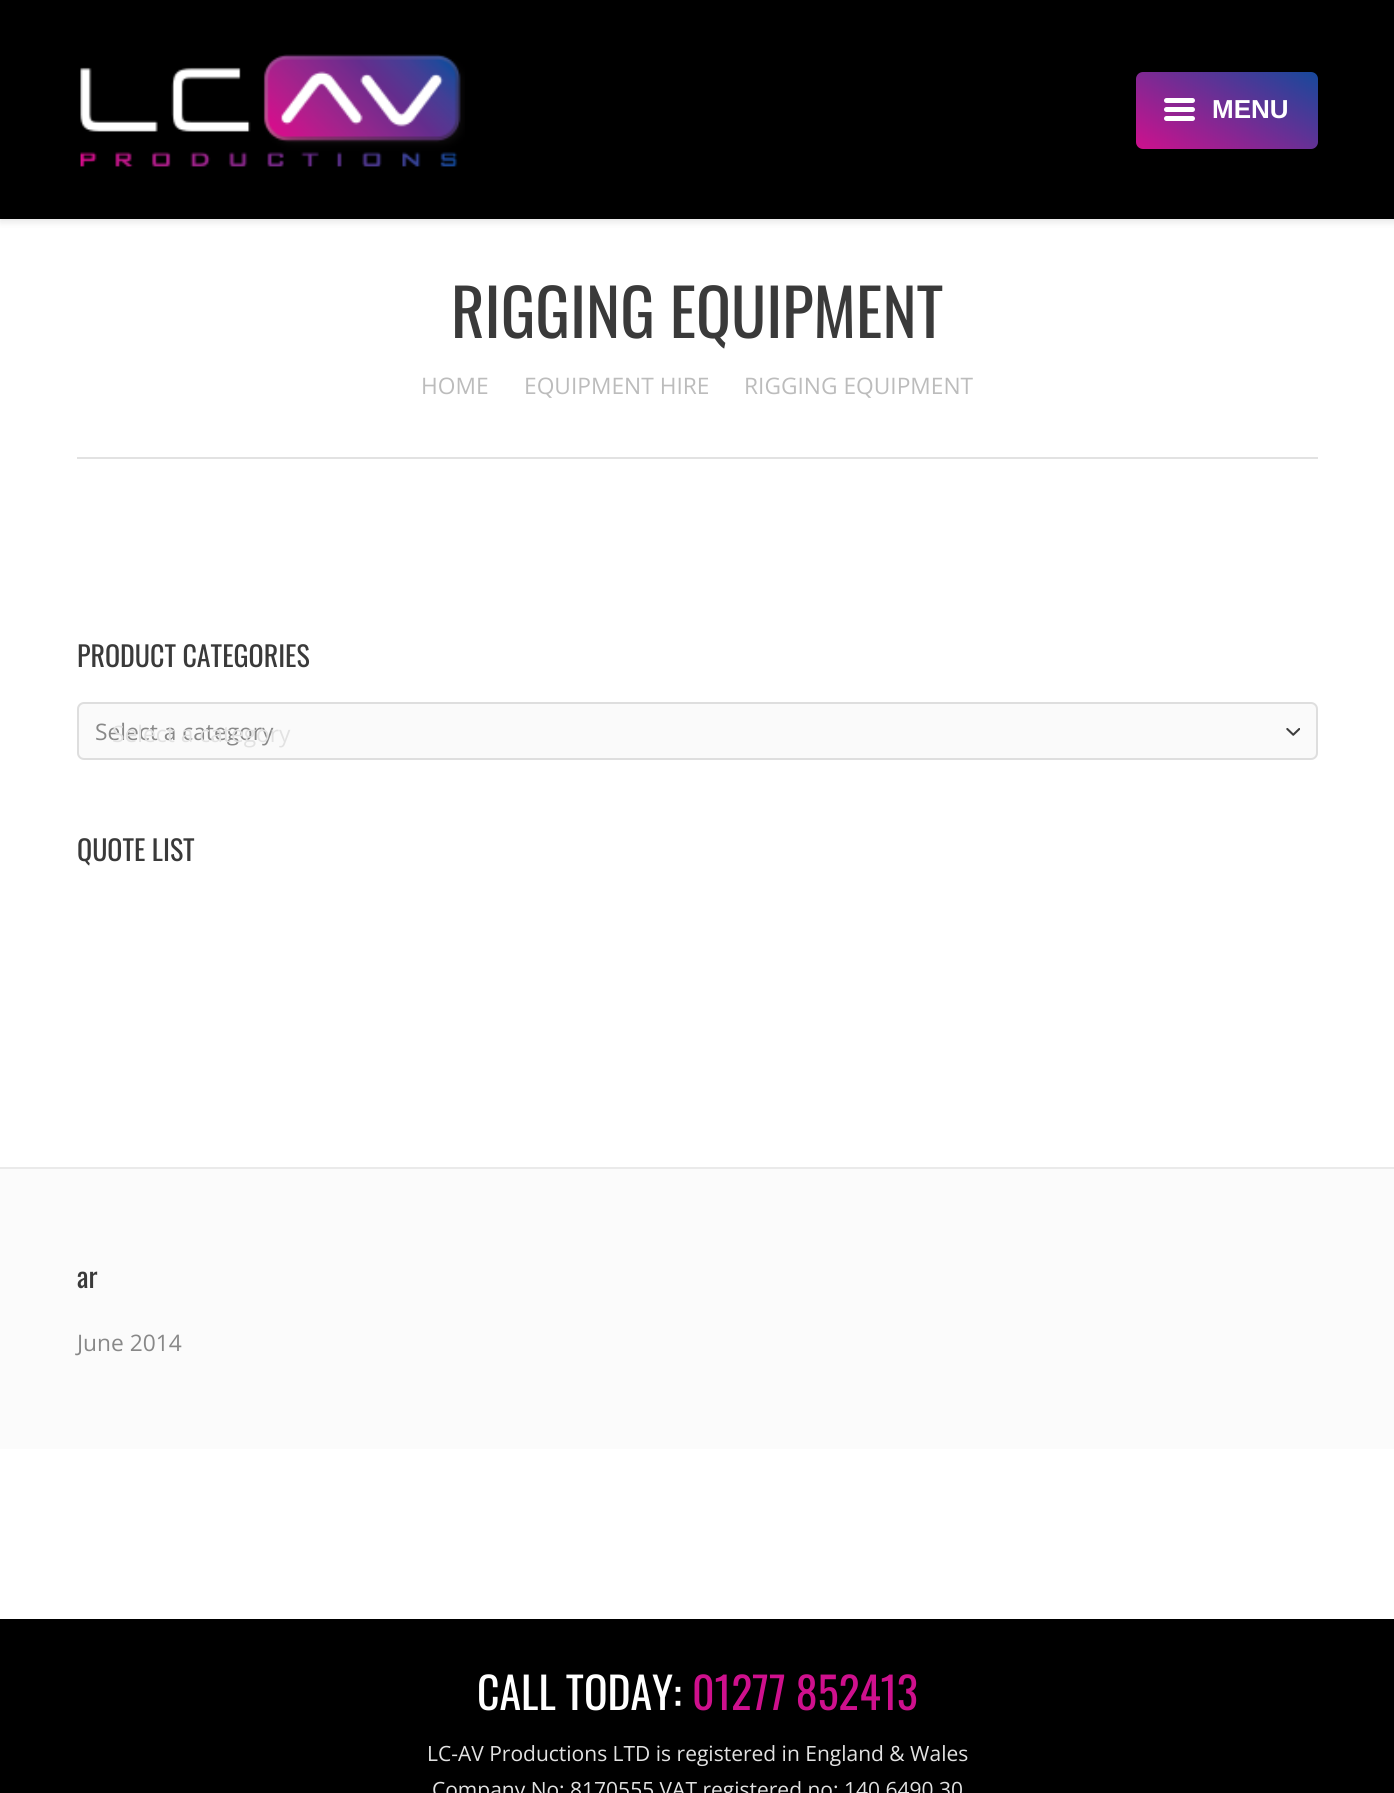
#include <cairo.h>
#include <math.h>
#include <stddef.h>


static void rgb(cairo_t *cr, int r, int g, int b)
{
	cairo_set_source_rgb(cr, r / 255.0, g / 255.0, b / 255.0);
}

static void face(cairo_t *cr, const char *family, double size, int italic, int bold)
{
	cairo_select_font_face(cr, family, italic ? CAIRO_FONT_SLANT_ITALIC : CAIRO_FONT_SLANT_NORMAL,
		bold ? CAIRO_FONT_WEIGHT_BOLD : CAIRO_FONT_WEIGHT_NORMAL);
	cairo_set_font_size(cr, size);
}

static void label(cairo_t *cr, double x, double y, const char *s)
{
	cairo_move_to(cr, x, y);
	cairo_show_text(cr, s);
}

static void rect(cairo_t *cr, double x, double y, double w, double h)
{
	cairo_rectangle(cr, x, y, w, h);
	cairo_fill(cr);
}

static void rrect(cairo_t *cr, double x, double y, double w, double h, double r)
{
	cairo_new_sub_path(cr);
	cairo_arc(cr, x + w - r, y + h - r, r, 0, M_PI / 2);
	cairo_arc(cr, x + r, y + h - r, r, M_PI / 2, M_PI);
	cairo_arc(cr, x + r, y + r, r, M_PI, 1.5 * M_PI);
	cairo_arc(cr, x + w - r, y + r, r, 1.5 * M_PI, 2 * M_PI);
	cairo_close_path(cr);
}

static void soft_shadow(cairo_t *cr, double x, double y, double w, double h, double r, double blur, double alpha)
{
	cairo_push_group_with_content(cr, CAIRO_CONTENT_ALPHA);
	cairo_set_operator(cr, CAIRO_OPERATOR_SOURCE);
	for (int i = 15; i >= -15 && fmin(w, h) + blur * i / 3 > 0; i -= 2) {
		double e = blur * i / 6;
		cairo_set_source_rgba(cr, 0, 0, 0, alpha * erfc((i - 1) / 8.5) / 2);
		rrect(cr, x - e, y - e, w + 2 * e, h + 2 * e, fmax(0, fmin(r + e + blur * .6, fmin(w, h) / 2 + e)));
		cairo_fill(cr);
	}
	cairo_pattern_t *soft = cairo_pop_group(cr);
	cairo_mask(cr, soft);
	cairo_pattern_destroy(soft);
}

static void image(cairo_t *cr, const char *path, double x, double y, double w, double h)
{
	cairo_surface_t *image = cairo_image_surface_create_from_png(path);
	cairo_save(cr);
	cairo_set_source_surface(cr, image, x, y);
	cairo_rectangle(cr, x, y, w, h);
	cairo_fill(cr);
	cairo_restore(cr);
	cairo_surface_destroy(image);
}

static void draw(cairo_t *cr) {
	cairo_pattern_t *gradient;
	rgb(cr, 255, 255, 255);
	cairo_paint(cr);
	rgb(cr, 0, 0, 0);
	soft_shadow(cr, 0, 0, 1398, 222, 0, 3.5, 0.1);
	rgb(cr, 0, 0, 0);
	rect(cr, 0, 0, 1394, 219);
	image(cr, "image0.png", 80, 54, 385, 113);
	gradient = cairo_pattern_create_linear(1187, 179, 1266, 42);
	cairo_pattern_add_color_stop_rgba(gradient, 0, 0.812, 0.063, 0.553, 1);
	cairo_pattern_add_color_stop_rgba(gradient, 1, 0.086, 0.286, 0.608, 1);
	cairo_set_source(cr, gradient);
	cairo_pattern_destroy(gradient);
	rrect(cr, 1136, 72, 182, 77, 7);
	cairo_fill(cr);
	rgb(cr, 255, 255, 255);
	rrect(cr, 1164, 107, 31, 5, 2.5);
	cairo_fill(cr);
	rrect(cr, 1164, 98, 31, 5, 2.5);
	cairo_fill(cr);
	rrect(cr, 1164, 116, 31, 5, 2.5);
	cairo_fill(cr);
	face(cr, "Liberation Sans", 26, 0, 1);
	label(cr, 1212, 118, "MENU");
	rgb(cr, 226, 226, 226);
	rect(cr, 77, 457, 1241, 2);
	face(cr, "Oswald", 64.75, 0, 0);
	rgb(cr, 58, 58, 58);
	label(cr, 451, 338, "RIGGING EQUIPMENT");
	face(cr, "Open Sans", 22.75, 0, 0);
	rgb(cr, 188, 188, 188);
	label(cr, 421, 394, "HOME");
	label(cr, 524, 394, "EQUIPMENT HIRE");
	label(cr, 744, 394, "RIGGING EQUIPMENT");
	face(cr, "Oswald", 28, 0, 0);
	rgb(cr, 58, 58, 58);
	label(cr, 77, 667, "PRODUCT CATEGORIES");
	rgb(cr, 250, 250, 250);
	rrect(cr, 78, 703, 1239, 56, 6);
	cairo_fill_preserve(cr);
	rgb(cr, 222, 222, 222);
	cairo_stroke(cr);
	image(cr, "image1.png", 1286, 728, 14, 8);
	face(cr, "Open Sans", 22.75, 0, 0);
	rgb(cr, 136, 136, 136);
	label(cr, 95, 740, "Select a category");
	rgb(cr, 226, 226, 226);
	label(cr, 112, 742, "Select a category");
	face(cr, "Oswald", 28, 0, 0);
	rgb(cr, 58, 58, 58);
	label(cr, 77, 861, "QUOTE LIST");
	rgb(cr, 251, 251, 251);
	rect(cr, 0, 1169, 1394, 280);
	rgb(cr, 234, 234, 234);
	rect(cr, 0, 1167, 1394, 2);
	rgb(cr, 58, 58, 58);
	label(cr, 77, 1288, "ar");
	face(cr, "Open Sans", 22.75, 0, 0);
	rgb(cr, 136, 136, 136);
	label(cr, 77, 1351, "June 2014");
	rgb(cr, 0, 0, 0);
	rect(cr, 0, 1619, 1394, 174);
	face(cr, "Oswald", 43.75, 0, 0);
	rgb(cr, 255, 255, 255);
	label(cr, 477, 1710, "CALL TODAY:");
	rgb(cr, 207, 16, 141);
	label(cr, 692, 1710, "01277 852413");
	face(cr, "Open Sans", 21, 0, 0);
	rgb(cr, 226, 226, 226);
	label(cr, 427, 1761, "LC-AV Productions LTD is registered in England & Wales");
	label(cr, 432, 1797, "Company No: 8170555 VAT registered no: 140 6490 30");
}

int main(void) {
	cairo_surface_t *surface = cairo_image_surface_create(CAIRO_FORMAT_RGB24, 1394, 1793);
	cairo_t *cr = cairo_create(surface);
	cairo_font_options_t *options = cairo_font_options_create();
	cairo_font_options_set_hint_metrics(options, CAIRO_HINT_METRICS_OFF);
	cairo_font_options_set_hint_style(options, CAIRO_HINT_STYLE_NONE);
	cairo_set_font_options(cr, options);
	cairo_set_miter_limit(cr, 4);
	draw(cr);
	cairo_surface_write_to_png(surface, "render.png");
	cairo_font_options_destroy(options);
	cairo_destroy(cr);
	cairo_surface_destroy(surface);
	return 0;
}
